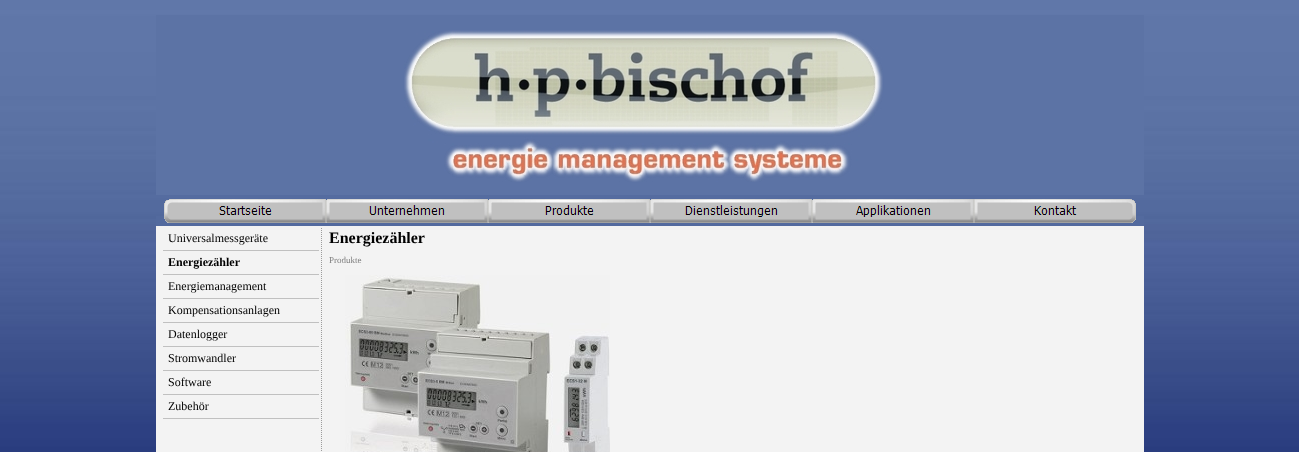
<svg xmlns="http://www.w3.org/2000/svg" width="1299" height="452" viewBox="0 0 1299 452">
  <rect width="100%" height="100%" fill="#ffffff"/>
  <image x="0" y="0" width="1299" height="452" href="img1.png"/>
  <rect x="156" y="15" width="988" height="180" fill="#5c73a5"/>
  <image x="404" y="30" width="479" height="152" href="img2.png"/>
  <rect x="156" y="226" width="988" height="226" fill="#f3f3f3"/>
  <rect x="156" y="216" width="988" height="10" fill="#536a9e"/>
  <image x="164" y="199" width="162" height="24" href="img3.png"/>
  <image x="326" y="199" width="162" height="24" href="img4.png"/>
  <image x="488" y="199" width="162" height="24" href="img5.png"/>
  <image x="650" y="199" width="162" height="24" href="img6.png"/>
  <image x="812" y="199" width="162" height="24" href="img7.png"/>
  <image x="974" y="199" width="162" height="24" href="img8.png"/>
  <rect x="163" y="250" width="156" height="1" fill="#c0c0c0"/>
  <text x="168" y="242" font-family="Liberation Serif" font-size="12" fill="#000000">Universalmessgeräte</text>
  <rect x="163" y="274" width="156" height="1" fill="#c0c0c0"/>
  <text x="168" y="266" font-family="Liberation Serif" font-size="12" font-weight="bold" fill="#000000">Energiezähler</text>
  <rect x="163" y="298" width="156" height="1" fill="#c0c0c0"/>
  <text x="168" y="290" font-family="Liberation Serif" font-size="12" fill="#000000">Energiemanagement</text>
  <rect x="163" y="322" width="156" height="1" fill="#c0c0c0"/>
  <text x="168" y="314" font-family="Liberation Serif" font-size="12" fill="#000000">Kompensationsanlagen</text>
  <rect x="163" y="346" width="156" height="1" fill="#c0c0c0"/>
  <text x="168" y="338" font-family="Liberation Serif" font-size="12" fill="#000000">Datenlogger</text>
  <rect x="163" y="370" width="156" height="1" fill="#c0c0c0"/>
  <text x="168" y="362" font-family="Liberation Serif" font-size="12" fill="#000000">Stromwandler</text>
  <rect x="163" y="394" width="156" height="1" fill="#c0c0c0"/>
  <text x="168" y="386" font-family="Liberation Serif" font-size="12" fill="#000000">Software</text>
  <rect x="163" y="418" width="156" height="1" fill="#c0c0c0"/>
  <text x="168" y="410" font-family="Liberation Serif" font-size="12" fill="#000000">Zubehör</text>
  <image x="321" y="228" width="1" height="223" href="img9.png"/>
  <text x="329" y="243" font-family="Liberation Serif" font-size="16" font-weight="bold" fill="#000000">Energiezähler</text>
  <text x="329" y="263" font-family="Liberation Serif" font-size="9" fill="#808080">Produkte</text>
  <image x="345" y="275" width="265" height="177" href="img10.png"/>
</svg>
